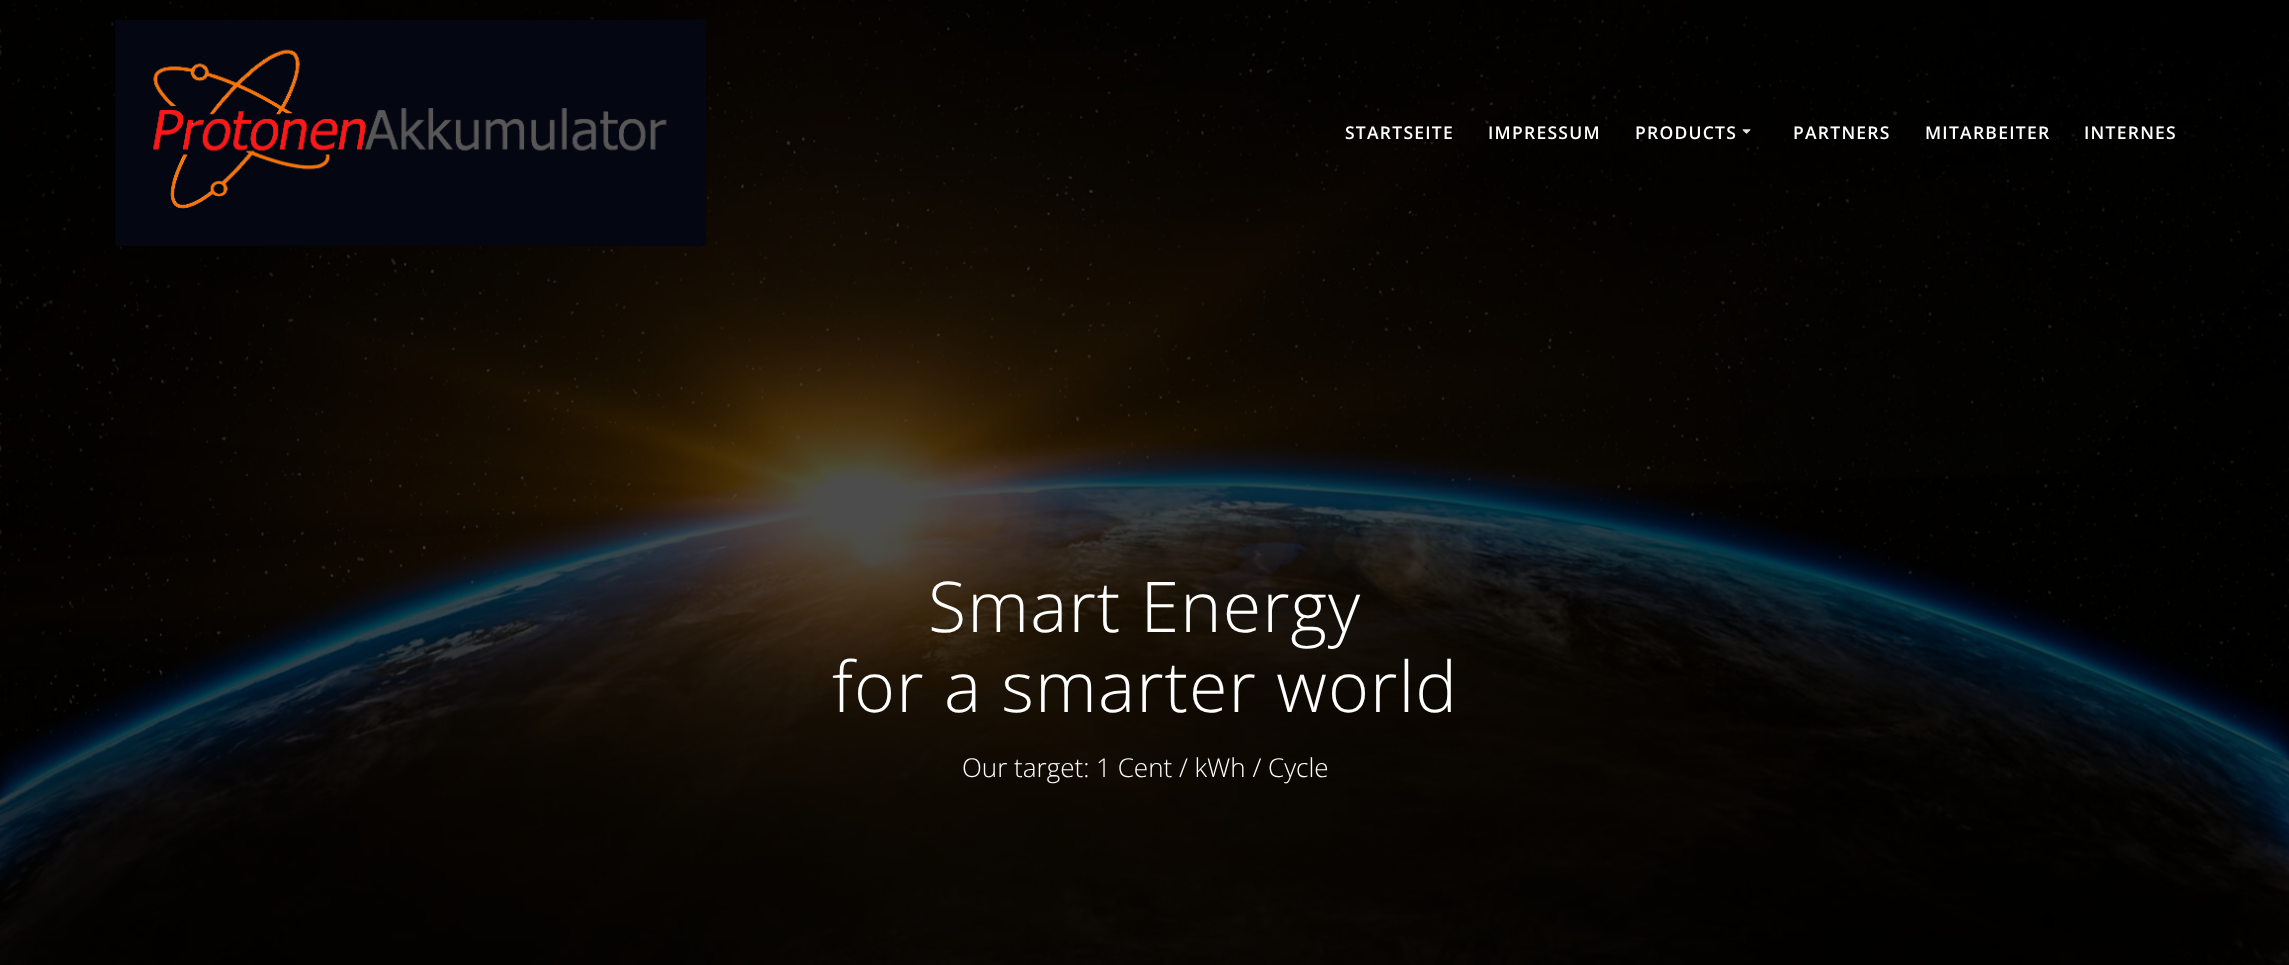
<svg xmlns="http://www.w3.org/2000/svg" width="2289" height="965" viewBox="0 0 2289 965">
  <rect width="100%" height="100%" fill="#ffffff"/>
  <image x="0" y="0" width="2289" height="965" href="img3.png"/>
  <image x="115" y="20" width="592" height="226" href="img1.png"/>
  <text x="1345" y="139" font-family="Open Sans" font-size="17.5" font-weight="600" letter-spacing="1.25" fill="#ffffff">STARTSEITE</text>
  <text x="1488" y="139" font-family="Open Sans" font-size="17.5" font-weight="600" letter-spacing="1.25" fill="#ffffff">IMPRESSUM</text>
  <text x="1635" y="139" font-family="Open Sans" font-size="17.5" font-weight="600" letter-spacing="1.25" fill="#ffffff">PRODUCTS</text>
  <image x="1742" y="129" width="9" height="5" href="img2.png"/>
  <text x="1793" y="139" font-family="Open Sans" font-size="17.5" font-weight="600" letter-spacing="1.25" fill="#ffffff">PARTNERS</text>
  <text x="1925" y="139" font-family="Open Sans" font-size="17.5" font-weight="600" letter-spacing="1.25" fill="#ffffff">MITARBEITER</text>
  <text x="2084" y="139" font-family="Open Sans" font-size="17.5" font-weight="600" letter-spacing="1.25" fill="#ffffff">INTERNES</text>
  <text x="928" y="632" font-family="Open Sans" font-size="70" font-weight="300" letter-spacing="1.1" fill="#ffffff">Smart Energy</text>
  <text x="832" y="712" font-family="Open Sans" font-size="70" font-weight="300" letter-spacing="1.1" fill="#ffffff">for a smarter world</text>
  <text x="962" y="777" font-family="Open Sans" font-size="26" font-weight="300" fill="#ffffff">Our target: 1 Cent / kWh / Cycle</text>
</svg>
